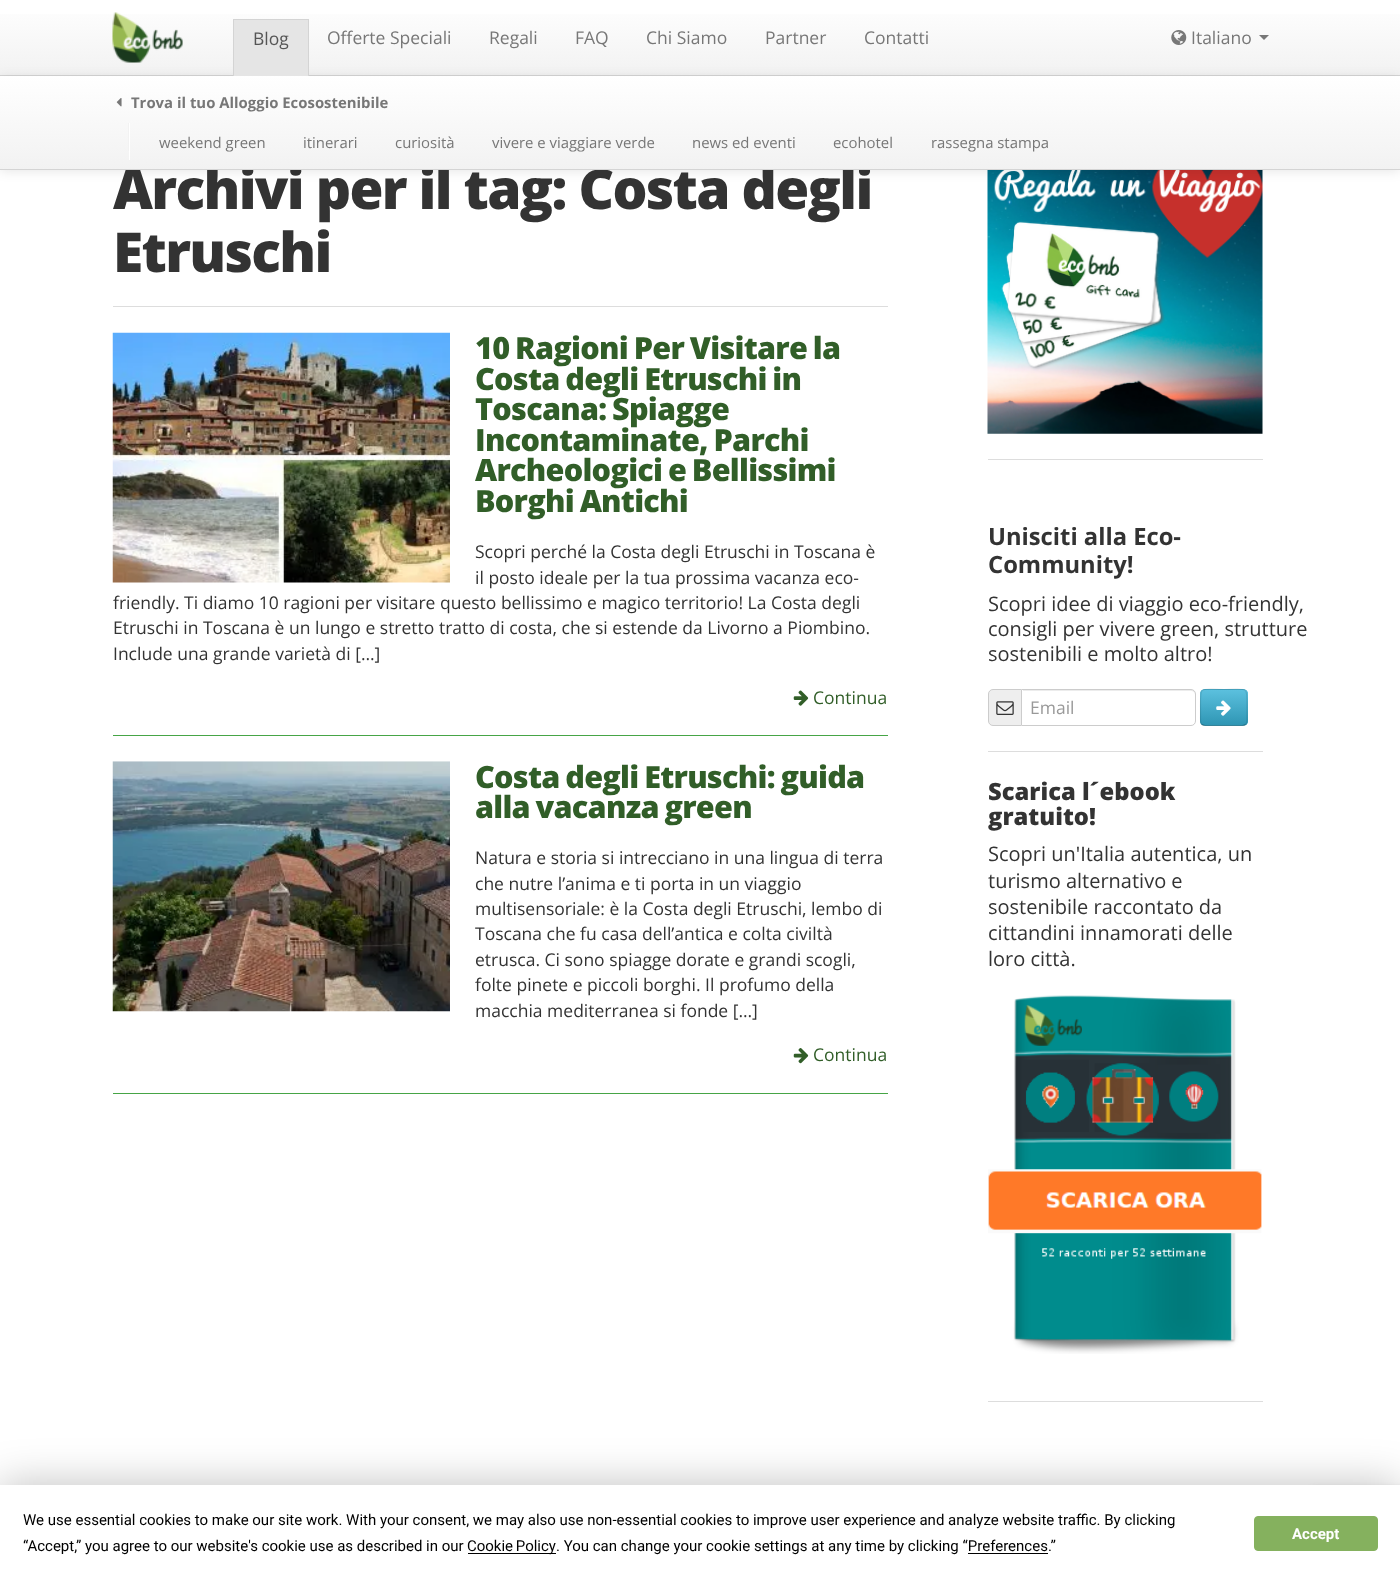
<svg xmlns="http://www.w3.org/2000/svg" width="1400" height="1582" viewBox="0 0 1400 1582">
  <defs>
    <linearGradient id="g1" gradientUnits="userSpaceOnUse" x1="700" y1="0" x2="700" y2="75"><stop offset="0" stop-color="#ffffff"/><stop offset="1" stop-color="#f2f2f2"/></linearGradient>
    <filter id="blur1" x="-50%" y="-200%" width="200%" height="500%"><feGaussianBlur stdDeviation="6"/></filter>
    <linearGradient id="g2" gradientUnits="userSpaceOnUse" x1="700" y1="76" x2="700" y2="169"><stop offset="0" stop-color="#ffffff"/><stop offset="1" stop-color="#f2f2f2"/></linearGradient>
    <clipPath id="clip1"><rect x="1200" y="689" width="48" height="37" rx="5"/></clipPath>
    <linearGradient id="g3" gradientUnits="userSpaceOnUse" x1="1224" y1="690" x2="1224" y2="725"><stop offset="0" stop-color="#5bc0de"/><stop offset="1" stop-color="#2f96b4"/></linearGradient>
    <filter id="blur2" x="-50%" y="-200%" width="200%" height="500%"><feGaussianBlur stdDeviation="3"/></filter>
    <filter id="blur3" x="-50%" y="-200%" width="200%" height="500%"><feGaussianBlur stdDeviation="22"/></filter>
  </defs>
  <rect width="100%" height="100%" fill="#ffffff"/>
  <rect x="0" y="14" width="1400" height="61" fill="url(#g1)"/>
  <rect x="0" y="75" width="1400" height="1" fill="#d4d4d4"/>
  <image x="987" y="170" width="276" height="264" href="img8.png"/>
  <rect x="0" y="78" width="1400" height="93" fill="#000000" fill-opacity="0.1" filter="url(#blur1)"/>
  <image x="112" y="12" width="71" height="51" href="img1.png"/>
  <rect x="234" y="20" width="74" height="56" fill="#e5e5e5"/>
  <rect x="233" y="19" width="76" height="1" fill="#d4d4d4"/>
  <rect x="308" y="19" width="1" height="57" fill="#d4d4d4"/>
  <rect x="233" y="19" width="1" height="57" fill="#d4d4d4"/>
  <text x="253" y="45" font-family="Open Sans" font-size="17.5" fill="#555555">Blog</text>
  <text x="327" y="44" font-family="Open Sans" font-size="17.5" fill="#777777">Offerte Speciali</text>
  <text x="489" y="44" font-family="Open Sans" font-size="17.5" fill="#777777">Regali</text>
  <text x="575" y="44" font-family="Open Sans" font-size="17.5" fill="#777777">FAQ</text>
  <text x="646" y="44" font-family="Open Sans" font-size="17.5" fill="#777777">Chi Siamo</text>
  <text x="765" y="44" font-family="Open Sans" font-size="17.5" fill="#777777">Partner</text>
  <text x="864" y="44" font-family="Open Sans" font-size="17.5" fill="#777777">Contatti</text>
  <image x="1171" y="30" width="16" height="15" href="img2.png"/>
  <text x="1191" y="44" font-family="Open Sans" font-size="17.5" fill="#777777">Italiano</text>
  <path d="M1259 35H1269L1264 40Z" fill="#777777"/>
  <text x="113" y="209" font-family="Open Sans" font-size="55" font-weight="800" letter-spacing="-1.65" fill="#333333">Archivi per il tag: Costa degli</text>
  <rect x="0" y="76" width="1400" height="93" fill="url(#g2)"/>
  <rect x="0" y="169" width="1400" height="1" fill="#d4d4d4"/>
  <image x="116" y="98" width="6" height="9" href="img3.png"/>
  <text x="131" y="108" font-family="Open Sans" font-size="14.9" font-weight="bold" fill="#777777">Trova il tuo Alloggio Ecosostenibile</text>
  <rect x="129" y="123" width="1" height="37" fill="#ffffff"/>
  <rect x="128" y="123" width="1" height="28" fill="#f2f2f2"/>
  <text x="159" y="148" font-family="Open Sans" font-size="14.9" fill="#777777">weekend green</text>
  <text x="303" y="148" font-family="Open Sans" font-size="14.9" fill="#777777">itinerari</text>
  <text x="395" y="148" font-family="Open Sans" font-size="14.9" fill="#777777">curiosità</text>
  <text x="492" y="148" font-family="Open Sans" font-size="14.9" fill="#777777">vivere e viaggiare verde</text>
  <text x="692" y="148" font-family="Open Sans" font-size="14.9" fill="#777777">news ed eventi</text>
  <text x="833" y="148" font-family="Open Sans" font-size="14.9" fill="#777777">ecohotel</text>
  <text x="931" y="148" font-family="Open Sans" font-size="14.9" fill="#777777">rassegna stampa</text>
  <rect x="113" y="306" width="775" height="1" fill="#dddddd"/>
  <text x="113" y="272" font-family="Open Sans" font-size="55" font-weight="800" letter-spacing="-1.65" fill="#333333">Etruschi</text>
  <rect x="113" y="735" width="775" height="1" fill="#46a546"/>
  <image x="112" y="332" width="338" height="251" href="img4.png"/>
  <text x="475" y="359" word-spacing="-1.5" font-family="Open Sans" font-size="30.6" font-weight="800" letter-spacing="-0.75" fill="#315e28">10 Ragioni Per Visitare la</text>
  <text x="475" y="390" word-spacing="-1.5" font-family="Open Sans" font-size="30.6" font-weight="800" letter-spacing="-0.75" fill="#315e28">Costa degli Etruschi in</text>
  <text x="475" y="420" word-spacing="-1.5" font-family="Open Sans" font-size="30.6" font-weight="800" letter-spacing="-0.75" fill="#315e28">Toscana: Spiagge</text>
  <text x="475" y="451" word-spacing="-1.5" font-family="Open Sans" font-size="30.6" font-weight="800" letter-spacing="-0.75" fill="#315e28">Incontaminate, Parchi</text>
  <text x="475" y="481" word-spacing="-1.5" font-family="Open Sans" font-size="30.6" font-weight="800" letter-spacing="-0.75" fill="#315e28">Archeologici e Bellissimi</text>
  <text x="475" y="512" word-spacing="-1.5" font-family="Open Sans" font-size="30.6" font-weight="800" letter-spacing="-0.75" fill="#315e28">Borghi Antichi</text>
  <text x="475" y="558" font-family="Open Sans" font-size="17.5" fill="#333333">Scopri perché la Costa degli Etruschi in Toscana è</text>
  <text x="475" y="584" font-family="Open Sans" font-size="17.5" fill="#333333">il posto ideale per la tua prossima vacanza eco-</text>
  <text x="113" y="609" font-family="Open Sans" font-size="17.5" fill="#333333">friendly. Ti diamo 10 ragioni per visitare questo bellissimo e magico territorio! La Costa degli</text>
  <text x="113" y="634" font-family="Open Sans" font-size="17.5" fill="#333333">Etruschi in Toscana è un lungo e stretto tratto di costa, che si estende da Livorno a Piombino.</text>
  <text x="113" y="660" font-family="Open Sans" font-size="17.5" fill="#333333">Include una grande varietà di […]</text>
  <image x="793" y="690" width="16" height="16" href="img5.png"/>
  <text x="813" y="704" font-family="Open Sans" font-size="17.5" fill="#315e28">Continua</text>
  <rect x="113" y="1093" width="775" height="1" fill="#46a546"/>
  <image x="112" y="761" width="338" height="251" href="img6.png"/>
  <text x="475" y="788" word-spacing="-1.5" font-family="Open Sans" font-size="30.6" font-weight="800" letter-spacing="-0.75" fill="#315e28">Costa degli Etruschi: guida</text>
  <text x="475" y="818" word-spacing="-1.5" font-family="Open Sans" font-size="30.6" font-weight="800" letter-spacing="-0.75" fill="#315e28">alla vacanza green</text>
  <text x="475" y="864" font-family="Open Sans" font-size="17.5" fill="#333333">Natura e storia si intrecciano in una lingua di terra</text>
  <text x="475" y="890" font-family="Open Sans" font-size="17.5" fill="#333333">che nutre l’anima e ti porta in un viaggio</text>
  <text x="475" y="915" font-family="Open Sans" font-size="17.5" fill="#333333">multisensoriale: è la Costa degli Etruschi, lembo di</text>
  <text x="475" y="940" font-family="Open Sans" font-size="17.5" fill="#333333">Toscana che fu casa dell’antica e colta civiltà</text>
  <text x="475" y="966" font-family="Open Sans" font-size="17.5" fill="#333333">etrusca. Ci sono spiagge dorate e grandi scogli,</text>
  <text x="475" y="991" font-family="Open Sans" font-size="17.5" fill="#333333">folte pinete e piccoli borghi. Il profumo della</text>
  <text x="475" y="1017" font-family="Open Sans" font-size="17.5" fill="#333333">macchia mediterranea si fonde […]</text>
  <image x="793" y="1048" width="16" height="16" href="img7.png"/>
  <text x="813" y="1061" font-family="Open Sans" font-size="17.5" fill="#315e28">Continua</text>
  <rect x="988" y="459" width="275" height="1" fill="#dddddd"/>
  <text x="988" y="545" font-family="Open Sans" font-size="23.75" font-weight="bold" fill="#333333">Unisciti alla Eco-</text>
  <text x="988" y="573" font-family="Open Sans" font-size="23.75" font-weight="bold" fill="#333333">Community!</text>
  <text x="988" y="611" font-family="Open Sans" font-size="20" fill="#333333">Scopri idee di viaggio eco-friendly,</text>
  <text x="988" y="636" font-family="Open Sans" font-size="20" fill="#333333">consigli per vivere green, strutture</text>
  <text x="988" y="661" font-family="Open Sans" font-size="20" fill="#333333">sostenibili e molto altro!</text>
  <path d="M993 689.5H1022.5V725.5H993C990.5 725.5 988.5 723.5 988.5 721V694C988.5 691.5 990.5 689.5 993 689.5Z" fill="#eeeeee" stroke="#cccccc"/>
  <image x="996" y="701" width="18" height="14" href="img9.png"/>
  <path d="M1021 689H1191C1194 689 1196 691 1196 694V721C1196 724 1194 726 1191 726H1021Z" fill="#ffffff"/>
  <path d="M1023 690V691H1191C1193 691 1195 693 1195 695C1195 692 1194 690 1191 690Z" fill="#ececec"/>
  <path d="M1021.5 689.5H1191C1193.5 689.5 1195.5 691.5 1195.5 694V721C1195.5 723.5 1193.5 725.5 1191 725.5H1021.5Z" fill="none" stroke="#cccccc"/>
  <text x="1030" y="714" font-family="Open Sans" font-size="17.5" fill="#999999">Email</text>
  <rect x="1200" y="689" width="48" height="37" rx="5" fill="#49afcd"/>
  <g clip-path="url(#clip1)">
    <rect x="1200" y="690" width="48" height="35" fill="url(#g3)"/>
  </g>
  <path d="M1245.5 724.5C1245 725 1243.5 725.5 1242.5 725.5H1205C1204 725.5 1202.5 725 1202 724.5" fill="none" stroke="#000000" stroke-opacity="0.25" stroke-width="1.2"/>
  <path d="M1202 724.5C1200 722.5 1200.5 719 1200.5 716.5V707.5C1200.5 684.5 1199 689.5 1224 689.5C1248.5 689.5 1247 684.5 1247 707.5V716.5C1247 719 1247.5 722.5 1245.5 724.5" fill="none" stroke="#000000" stroke-opacity="0.1" stroke-width="1.2"/>
  <image x="1216" y="700" width="15" height="16" href="img10.png"/>
  <rect x="1313" y="1490" width="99" height="75" rx="2.5" fill="#808080" filter="url(#blur2)"/>
  <rect x="988" y="751" width="275" height="1" fill="#dddddd"/>
  <text x="988" y="800" font-family="Open Sans" font-size="23.75" font-weight="800" fill="#333333">Scarica l´ebook</text>
  <text x="988" y="825" font-family="Open Sans" font-size="23.75" font-weight="800" fill="#333333">gratuito!</text>
  <text x="988" y="861" font-family="Open Sans" font-size="20" fill="#333333">Scopri un'Italia autentica, un</text>
  <text x="988" y="888" font-family="Open Sans" font-size="20" fill="#333333">turismo alternativo e</text>
  <text x="988" y="914" font-family="Open Sans" font-size="20" fill="#333333">sostenibile raccontato da</text>
  <text x="988" y="940" font-family="Open Sans" font-size="20" fill="#333333">cittandini innamorati delle</text>
  <text x="988" y="966" font-family="Open Sans" font-size="20" fill="#333333">loro città.</text>
  <image x="988" y="995" width="274" height="359" href="img11.png"/>
  <rect x="988" y="1401" width="275" height="1" fill="#dddddd"/>
  <rect x="0" y="1485" width="1400" height="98" fill="#000000" fill-opacity="0.25" filter="url(#blur3)"/>
  <rect x="0" y="1485" width="1400" height="97" fill="#ffffff"/>
  <text x="23" y="1525" font-family="Roboto" font-size="15" fill="#000000">We use essential cookies to make our site work. With your consent, we may also use non-essential cookies to improve user experience and analyze website traffic. By clicking</text>
  <text x="23" y="1551" font-family="Roboto" font-size="15" fill="#000000">“Accept,” you agree to our website's cookie use as described in our</text>
  <rect x="468" y="1553" width="88" height="1" fill="#000000"/>
  <text x="467" y="1551" word-spacing="-1" font-family="Roboto" font-size="15" fill="#000000">Cookie Policy</text>
  <text x="556" y="1551" font-family="Roboto" font-size="15" fill="#000000">. You can change your cookie settings at any time by clicking “Preferences.”</text>
  <rect x="968" y="1553" width="80" height="1" fill="#000000"/>
  <rect x="1254.5" y="1516.5" width="123" height="34" rx="3.5" fill="#85b15e" stroke="#85b15e"/>
  <text x="1292" y="1539" font-family="Roboto" font-size="15" font-weight="bold" fill="#ffffff">Accept</text>
</svg>
